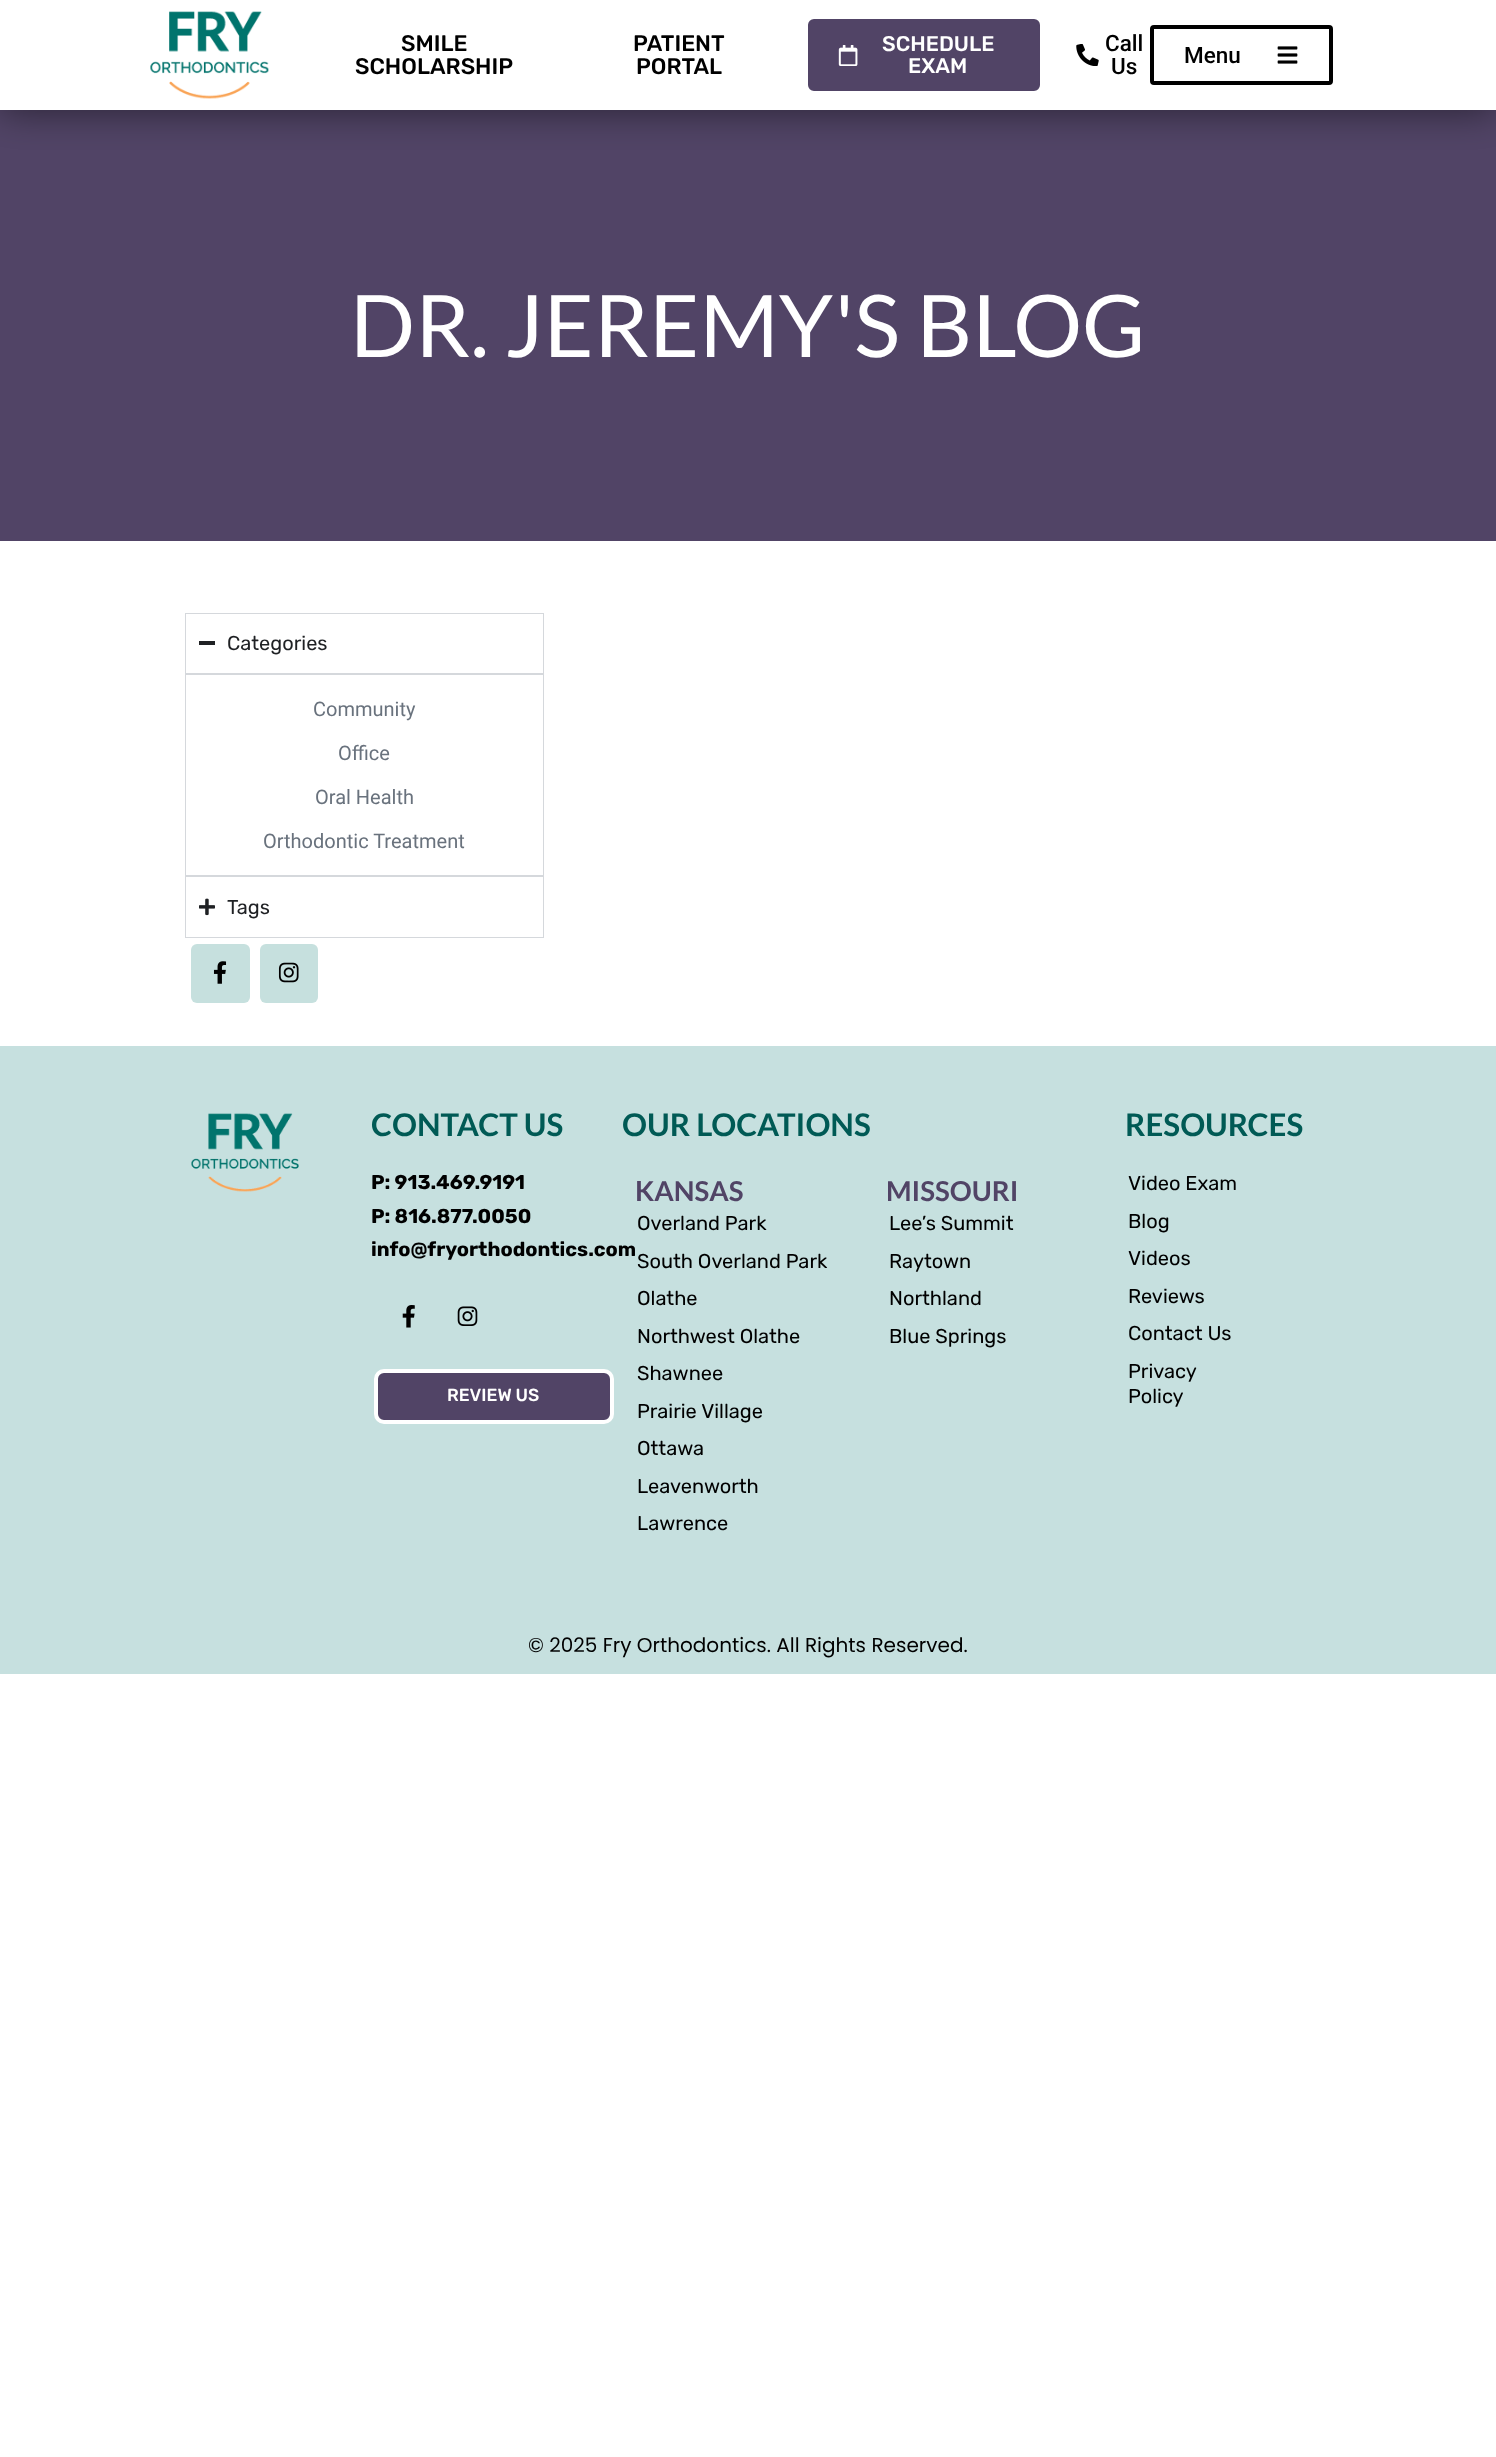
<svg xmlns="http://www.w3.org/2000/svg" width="1496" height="2457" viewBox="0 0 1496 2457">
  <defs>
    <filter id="blur1" x="-50%" y="-200%" width="200%" height="500%"><feGaussianBlur stdDeviation="19"/></filter>
  </defs>
  <rect width="100%" height="100%" fill="#ffffff"/>
  <rect x="0" y="110" width="1496" height="431" fill="#514466"/>
  <rect x="0" y="1" width="1496" height="110" fill="#000000" fill-opacity="0.5" filter="url(#blur1)"/>
  <rect x="0" y="0" width="1496" height="110" fill="#ffffff"/>
  <image x="150" y="11" width="119" height="88" href="img1.png"/>
  <text x="401" y="51" font-family="Rubik" font-size="22.5" font-weight="500" fill="#000000">SMILE</text>
  <text x="355" y="74" font-family="Rubik" font-size="22.5" font-weight="500" fill="#000000">SCHOLARSHIP</text>
  <text x="633" y="51" font-family="Rubik" font-size="22.5" font-weight="500" fill="#000000">PATIENT</text>
  <text x="636" y="74" font-family="Rubik" font-size="22.5" font-weight="500" fill="#000000">PORTAL</text>
  <rect x="806" y="17" width="236" height="76" rx="8" fill="#514466" stroke="#ffffff" stroke-width="4"/>
  <image x="838" y="45" width="20" height="21" href="img2.png"/>
  <text x="882" y="51" font-family="Rubik" font-size="21.25" font-weight="500" fill="#ffffff">SCHEDULE</text>
  <text x="908" y="73" font-family="Rubik" font-size="21.25" font-weight="500" fill="#ffffff">EXAM</text>
  <image x="1076" y="44" width="23" height="22" href="img3.png"/>
  <text x="1105" y="51" font-family="Roboto" font-size="22.5" font-weight="500" fill="#000000">Call</text>
  <text x="1111" y="74" font-family="Roboto" font-size="22.5" font-weight="500" fill="#000000">Us</text>
  <rect x="1152" y="27" width="179" height="56" rx="2" fill="none" stroke="#000000" stroke-width="4"/>
  <text x="1184" y="63" font-family="Roboto" font-size="22.5" font-weight="500" fill="#000000">Menu</text>
  <image x="1277" y="46" width="21" height="18" href="img4.png"/>
  <text x="350" y="357" font-family="Lato" font-size="86.25" fill="#ffffff">DR. JEREMY'S BLOG</text>
  <rect x="185.5" y="613.5" width="358" height="60" fill="none" stroke="#d5d8dc"/>
  <rect x="199" y="641" width="16" height="4" fill="#1f2124"/>
  <text x="227" y="650" font-family="Rubik" font-size="20" fill="#1f2124">Categories</text>
  <rect x="185.5" y="674.5" width="358" height="201" fill="none" stroke="#d5d8dc"/>
  <text x="313" y="716" font-family="Roboto" font-size="20" fill="#69727d">Community</text>
  <text x="338" y="760" font-family="Roboto" font-size="20" fill="#69727d">Office</text>
  <text x="315" y="804" font-family="Roboto" font-size="20" fill="#69727d">Oral Health</text>
  <text x="263" y="848" font-family="Roboto" font-size="20" fill="#69727d">Orthodontic Treatment</text>
  <rect x="185.5" y="876.5" width="358" height="61" fill="none" stroke="#d5d8dc"/>
  <image x="199" y="898" width="16" height="18" href="img5.png"/>
  <text x="227" y="914" font-family="Rubik" font-size="20" fill="#1f2124">Tags</text>
  <rect x="191" y="944" width="59" height="59" rx="6" fill="#c6e0de"/>
  <image x="213" y="961" width="14" height="23" href="img6.png"/>
  <rect x="260" y="944" width="58" height="59" rx="6" fill="#c6e0de"/>
  <image x="278" y="962" width="21" height="21" href="img7.png"/>
  <rect x="0" y="1046" width="1496" height="628" fill="#c6e0df"/>
  <image x="191" y="1113" width="108" height="79" href="img8.png"/>
  <text x="371" y="1136" font-family="Lato" font-size="31.25" font-weight="bold" fill="#005a55">CONTACT US</text>
  <text x="371" y="1189" font-family="Rubik" font-size="20" font-weight="bold" fill="#000000">P: 913.469.9191</text>
  <text x="371" y="1223" font-family="Rubik" font-size="20" font-weight="bold" fill="#000000">P: 816.877.0050</text>
  <text x="371" y="1256" font-family="Rubik" font-size="20" font-weight="bold" fill="#000000">info@fryorthodontics.com</text>
  <image x="402" y="1305" width="13" height="23" href="img9.png"/>
  <image x="457" y="1306" width="21" height="20" href="img10.png"/>
  <rect x="376" y="1371" width="236" height="51" rx="8" fill="#514466" stroke="#ffffff" stroke-width="4"/>
  <text x="447" y="1401" font-family="Rubik" font-size="17.5" font-weight="500" fill="#ffffff">REVIEW US</text>
  <text x="622" y="1136" font-family="Lato" font-size="31.25" font-weight="bold" fill="#005a55">OUR LOCATIONS</text>
  <text x="635" y="1201" font-family="Lato" font-size="27.5" font-weight="bold" fill="#514466">KANSAS</text>
  <text x="637" y="1230" font-family="Rubik" font-size="20" fill="#000000">Overland Park</text>
  <text x="637" y="1268" font-family="Rubik" font-size="20" fill="#000000">South Overland Park</text>
  <text x="637" y="1305" font-family="Rubik" font-size="20" fill="#000000">Olathe</text>
  <text x="637" y="1343" font-family="Rubik" font-size="20" fill="#000000">Northwest Olathe</text>
  <text x="637" y="1380" font-family="Rubik" font-size="20" fill="#000000">Shawnee</text>
  <text x="637" y="1418" font-family="Rubik" font-size="20" fill="#000000">Prairie Village</text>
  <text x="637" y="1455" font-family="Rubik" font-size="20" fill="#000000">Ottawa</text>
  <text x="637" y="1493" font-family="Rubik" font-size="20" fill="#000000">Leavenworth</text>
  <text x="637" y="1530" font-family="Rubik" font-size="20" fill="#000000">Lawrence</text>
  <text x="886" y="1201" font-family="Lato" font-size="27.5" font-weight="bold" fill="#514466">MISSOURI</text>
  <text x="889" y="1230" font-family="Rubik" font-size="20" fill="#000000">Lee’s Summit</text>
  <text x="889" y="1268" font-family="Rubik" font-size="20" fill="#000000">Raytown</text>
  <text x="889" y="1305" font-family="Rubik" font-size="20" fill="#000000">Northland</text>
  <text x="889" y="1343" font-family="Rubik" font-size="20" fill="#000000">Blue Springs</text>
  <text x="1125" y="1136" font-family="Lato" font-size="31.25" font-weight="bold" fill="#005a55">RESOURCES</text>
  <text x="1128" y="1190" font-family="Rubik" font-size="20" fill="#000000">Video Exam</text>
  <text x="1128" y="1228" font-family="Rubik" font-size="20" fill="#000000">Blog</text>
  <text x="1128" y="1265" font-family="Rubik" font-size="20" fill="#000000">Videos</text>
  <text x="1128" y="1303" font-family="Rubik" font-size="20" fill="#000000">Reviews</text>
  <text x="1128" y="1340" font-family="Rubik" font-size="20" fill="#000000">Contact Us</text>
  <text x="1128" y="1378" font-family="Rubik" font-size="20" fill="#000000">Privacy</text>
  <text x="1128" y="1403" font-family="Rubik" font-size="20" fill="#000000">Policy</text>
  <text x="528" y="1652" font-family="Poppins" font-size="20" fill="#000000">© 2025 Fry Orthodontics. All Rights Reserved.</text>
</svg>
